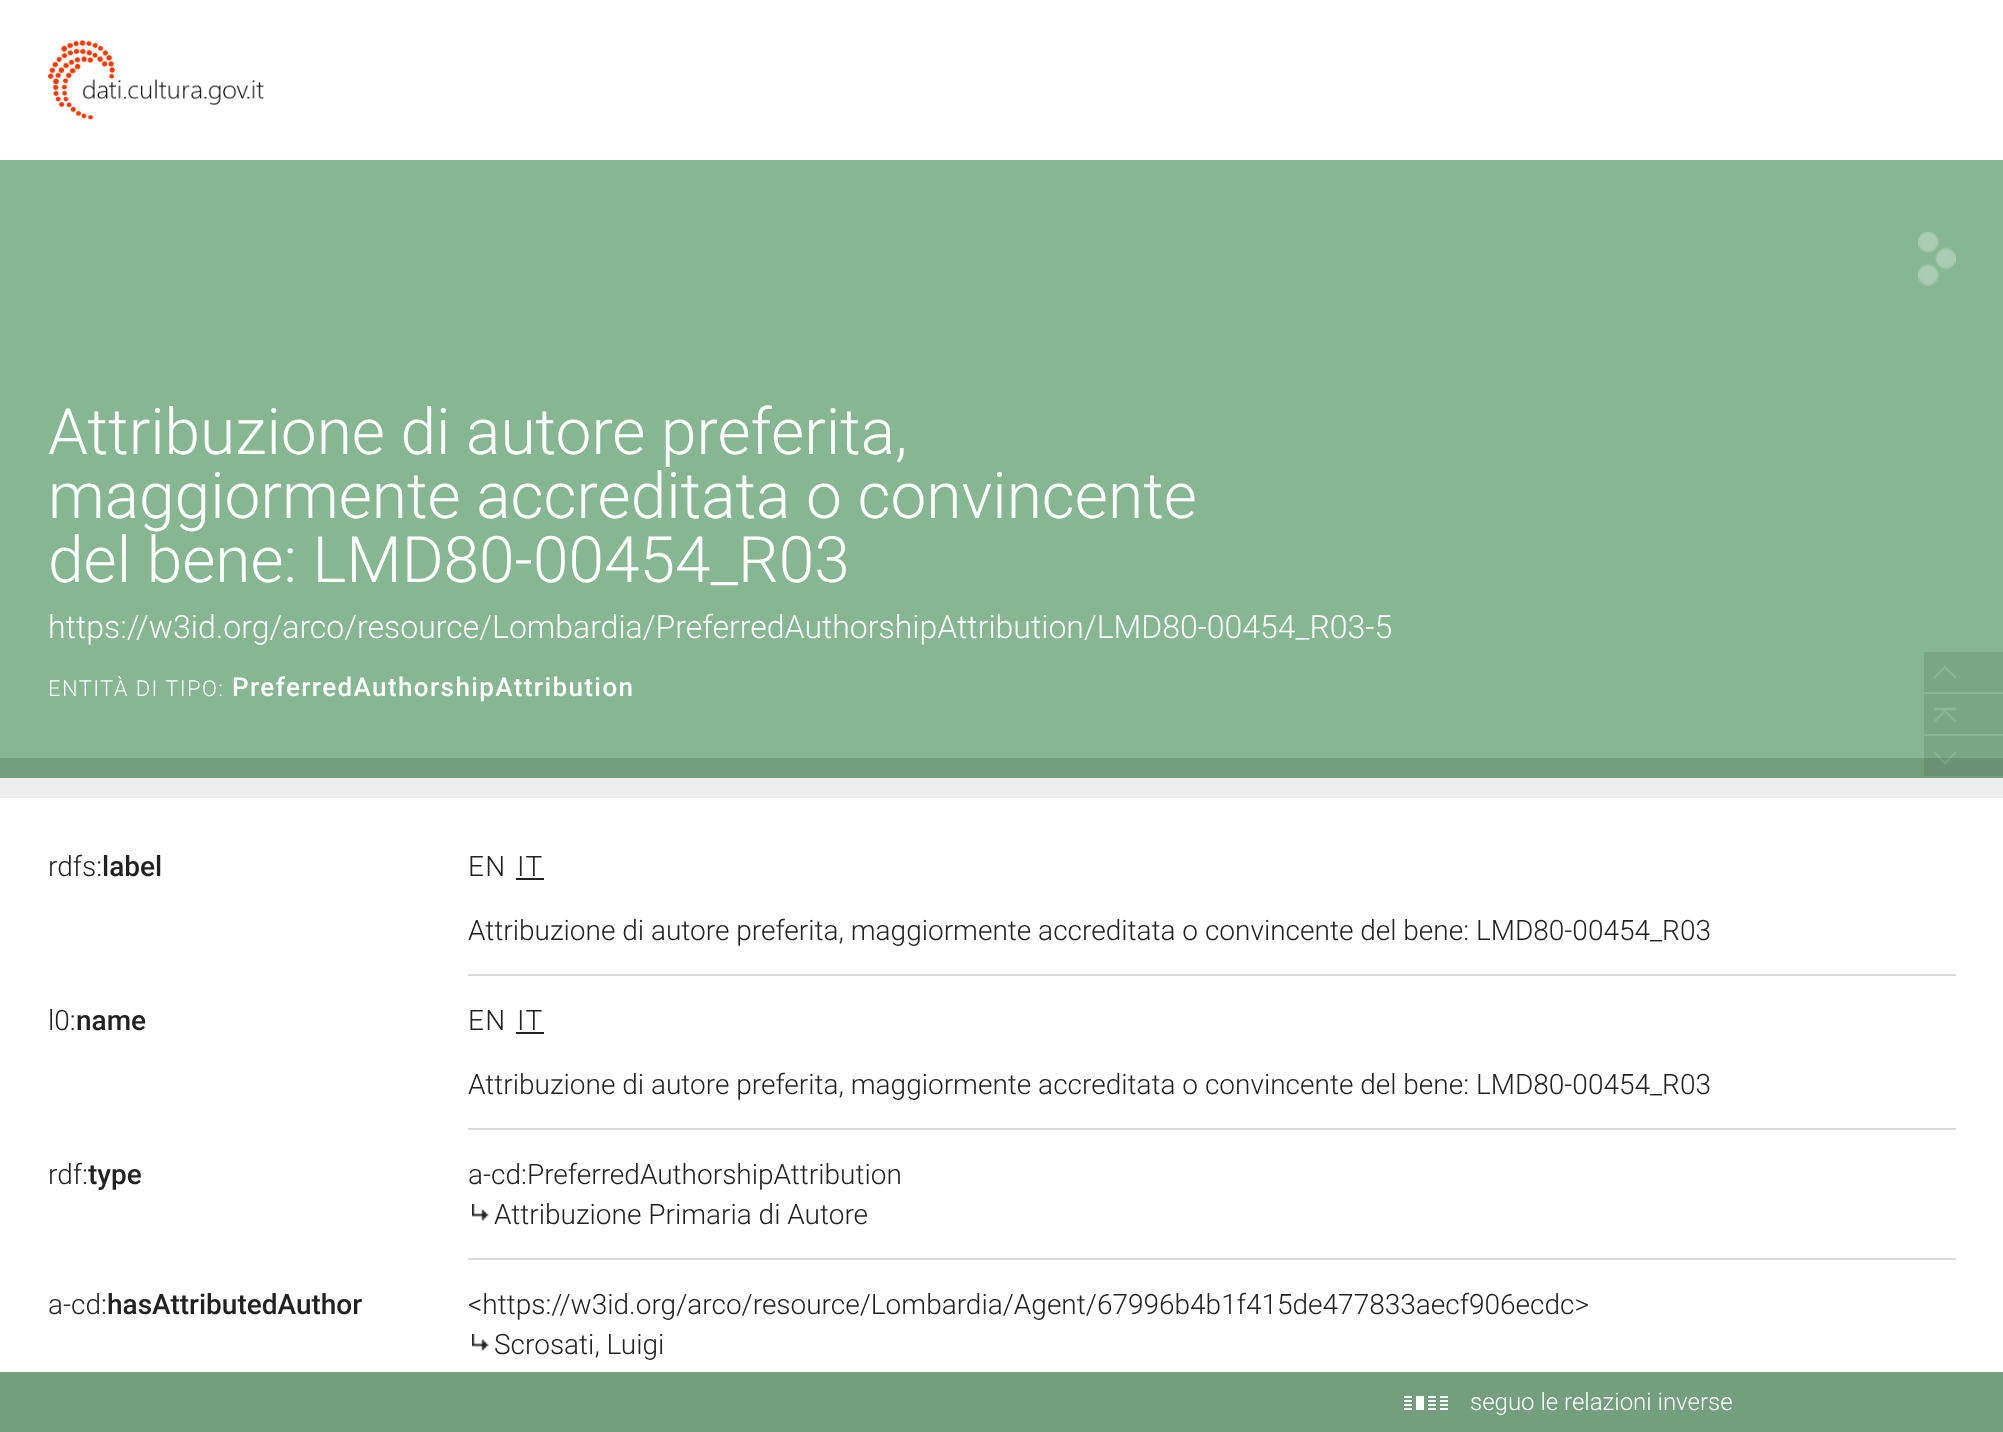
<svg xmlns="http://www.w3.org/2000/svg" width="2003" height="1432" viewBox="0 0 2003 1432">
  <rect width="100%" height="100%" fill="#ffffff"/>
  <image x="48" y="40" width="216" height="80" href="img1.png"/>
  <rect x="0" y="160" width="2003" height="598" fill="#86b692"/>
  <text x="48" y="454" font-family="Roboto" font-size="64" font-weight="300" fill="#ffffff">Attribuzione di autore preferita,</text>
  <text x="48" y="518" font-family="Roboto" font-size="64" font-weight="300" fill="#ffffff">maggiormente accreditata o convincente</text>
  <text x="48" y="582" font-family="Roboto" font-size="64" font-weight="300" fill="#ffffff">del bene: LMD80-00454_R03</text>
  <image x="1918" y="232" width="38" height="54" href="img2.png"/>
  <text x="48" y="638" font-family="Roboto" font-size="32" font-weight="300" fill="#ffffff">https://w3id.org/arco/resource/Lombardia/PreferredAuthorshipAttribution/LMD80-00454_R03-5</text>
  <text x="48" y="696" font-family="Roboto" font-size="22" font-weight="300" letter-spacing="1.4" fill="#ffffff">ENTITÀ DI TIPO:</text>
  <text x="232" y="696" font-family="Roboto" font-size="26" font-weight="500" letter-spacing="1.4" fill="#ffffff">PreferredAuthorshipAttribution</text>
  <rect x="0" y="758" width="2003" height="20" fill="#749f7e"/>
  <rect x="0" y="778" width="2003" height="20" fill="#eeeeee"/>
  <text x="48" y="876" font-family="Roboto" font-size="28" font-weight="300" fill="#212121">rdfs:</text>
  <text x="102" y="876" font-family="Roboto" font-size="28" font-weight="500" fill="#212121">label</text>
  <rect x="468" y="974" width="1488" height="2" fill="#dbdbdb"/>
  <text x="468" y="876" font-family="Roboto" font-size="28" font-weight="300" letter-spacing="1.4" fill="#212121">EN</text>
  <text x="517" y="876" font-family="Roboto" font-size="28" font-weight="300" letter-spacing="1.4" fill="#212121">IT</text>
  <rect x="516" y="878" width="28" height="2" fill="#212121"/>
  <text x="468" y="940" font-family="Roboto" font-size="28" font-weight="300" fill="#212121">Attribuzione di autore preferita, maggiormente accreditata o convincente del bene: LMD80-00454_R03</text>
  <text x="48" y="1030" font-family="Roboto" font-size="28" font-weight="300" fill="#212121">l0:</text>
  <text x="76" y="1030" font-family="Roboto" font-size="28" font-weight="500" fill="#212121">name</text>
  <rect x="468" y="1128" width="1488" height="2" fill="#dbdbdb"/>
  <text x="468" y="1030" font-family="Roboto" font-size="28" font-weight="300" letter-spacing="1.4" fill="#212121">EN</text>
  <text x="517" y="1030" font-family="Roboto" font-size="28" font-weight="300" letter-spacing="1.4" fill="#212121">IT</text>
  <rect x="516" y="1032" width="28" height="2" fill="#212121"/>
  <text x="468" y="1094" font-family="Roboto" font-size="28" font-weight="300" fill="#212121">Attribuzione di autore preferita, maggiormente accreditata o convincente del bene: LMD80-00454_R03</text>
  <text x="48" y="1184" font-family="Roboto" font-size="28" font-weight="300" fill="#212121">rdf:</text>
  <text x="88" y="1184" font-family="Roboto" font-size="28" font-weight="500" fill="#212121">type</text>
  <rect x="468" y="1258" width="1488" height="2" fill="#dbdbdb"/>
  <text x="468" y="1184" font-family="Roboto" font-size="28" font-weight="300" fill="#212121">a-cd:PreferredAuthorshipAttribution</text>
  <image x="472" y="1204" width="17" height="17" href="img3.png"/>
  <text x="494" y="1224" font-family="Roboto" font-size="28" font-weight="300" fill="#212121">Attribuzione Primaria di Autore</text>
  <text x="48" y="1314" font-family="Roboto" font-size="28" font-weight="300" fill="#212121">a-cd:</text>
  <text x="107" y="1314" font-family="Roboto" font-size="28" font-weight="500" fill="#212121">hasAttributedAuthor</text>
  <text x="468" y="1314" font-family="Roboto" font-size="28" font-weight="300" fill="#212121">&lt;https://w3id.org/arco/resource/Lombardia/Agent/67996b4b1f415de477833aecf906ecdc&gt;</text>
  <image x="472" y="1334" width="17" height="17" href="img3.png"/>
  <text x="494" y="1354" font-family="Roboto" font-size="28" font-weight="300" fill="#212121">Scrosati, Luigi</text>
  <image x="1924" y="652" width="79" height="40" href="img4.png"/>
  <image x="1924" y="694" width="79" height="40" href="img5.png"/>
  <image x="1924" y="736" width="79" height="40" href="img6.png"/>
  <rect x="0" y="1372" width="2003" height="60" fill="#749f7e"/>
  <image x="1404" y="1396" width="44" height="14" href="img7.png"/>
  <text x="1470" y="1410" font-family="Roboto" font-size="24" font-weight="300" fill="#ffffff">seguo le relazioni inverse</text>
</svg>
